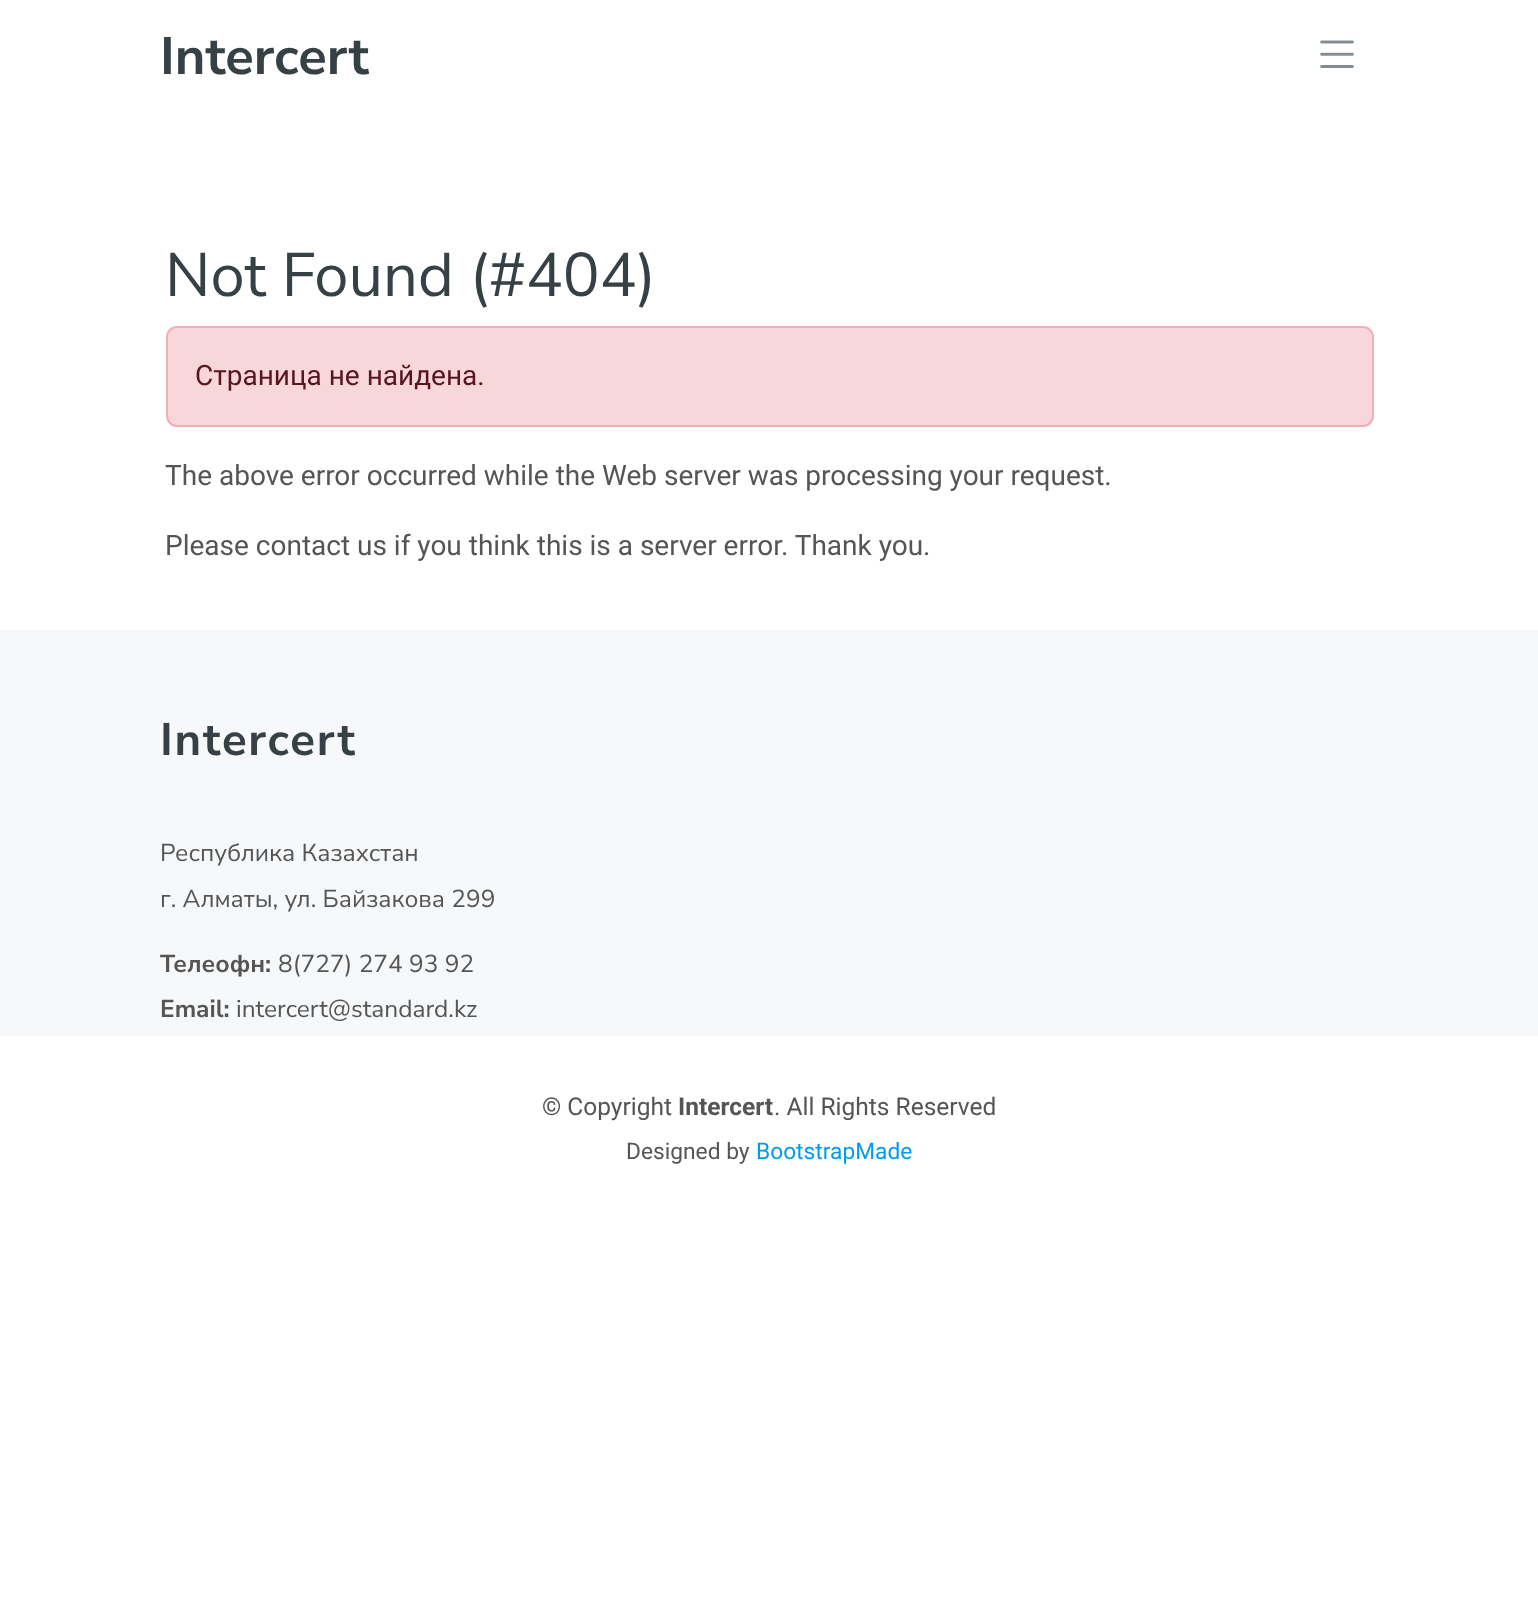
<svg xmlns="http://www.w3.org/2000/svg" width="1538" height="1598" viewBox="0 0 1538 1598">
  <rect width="100%" height="100%" fill="#ffffff"/>
  <text x="160" y="74" font-family="Nunito Sans" font-size="52.5" font-weight="bold" fill="#364146">Intercert</text>
  <image x="1320" y="40" width="34" height="28" href="img1.png"/>
  <text x="165" y="296" font-family="Nunito Sans" font-size="61.5" fill="#364146">Not Found (#404)</text>
  <rect x="167" y="327" width="1206" height="99" rx="10" fill="#f8d7da" stroke="#f1aeb5" stroke-width="2"/>
  <text x="195" y="385" font-family="Roboto" font-size="28" fill="#58151c">Страница не найдена.</text>
  <text x="165" y="485" font-family="Roboto" font-size="28" fill="#555555">The above error occurred while the Web server was processing your request.</text>
  <text x="165" y="555" font-family="Roboto" font-size="28" fill="#555555">Please contact us if you think this is a server error. Thank you.</text>
  <rect x="0" y="630" width="1538" height="406" fill="#f6f8fa"/>
  <text x="160" y="755" font-family="Nunito Sans" font-size="45.5" font-weight="bold" letter-spacing="1.75" fill="#364146">Intercert</text>
  <text x="160" y="861" font-family="Nunito Sans" font-size="24.5" fill="#555555">Республика Казахстан</text>
  <text x="160" y="907" font-family="Nunito Sans" font-size="24.5" fill="#555555">г. Алматы, ул. Байзакова 299</text>
  <text x="160" y="972" font-family="Nunito Sans" font-size="24.5" font-weight="bold" fill="#555555">Телеофн:</text>
  <text x="278" y="972" font-family="Nunito Sans" font-size="24.5" fill="#555555">8(727) 274 93 92</text>
  <text x="160" y="1017" font-family="Nunito Sans" font-size="24.5" font-weight="bold" fill="#555555">Email:</text>
  <text x="236" y="1017" font-family="Nunito Sans" font-size="24.5" fill="#555555">intercert@standard.kz</text>
  <text x="542" y="1115" font-family="Roboto" font-size="24.5" fill="#555555">© Copyright</text>
  <text x="678" y="1115" font-family="Roboto" font-size="24.5" font-weight="bold" fill="#555555">Intercert</text>
  <text x="774" y="1115" font-family="Roboto" font-size="24.5" fill="#555555">. All Rights Reserved</text>
  <text x="626" y="1159" font-family="Roboto" font-size="22.75" fill="#555555">Designed by</text>
  <text x="756" y="1159" font-family="Roboto" font-size="22.75" fill="#009cea">BootstrapMade</text>
</svg>
